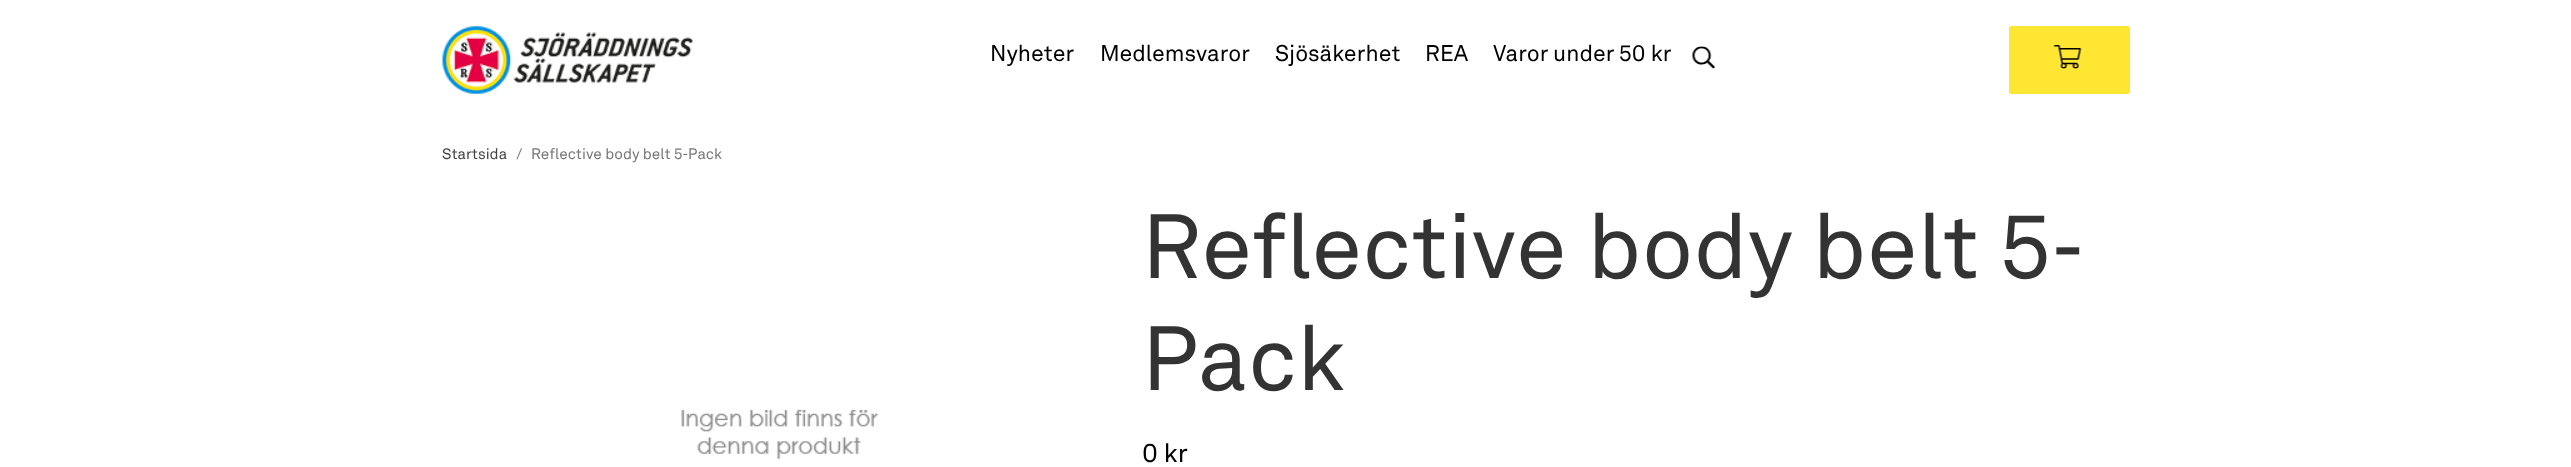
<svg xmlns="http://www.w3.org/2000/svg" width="2571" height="467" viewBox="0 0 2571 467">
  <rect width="100%" height="100%" fill="#ffffff"/>
  <image x="442" y="26" width="251" height="68" href="img1.png"/>
  <text x="990" y="61" font-family="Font" font-size="22.5" fill="#000000">Nyheter</text>
  <text x="1100" y="61" font-family="Font" font-size="22.5" fill="#000000">Medlemsvaror</text>
  <text x="1275" y="61" font-family="Font" font-size="22.5" fill="#000000">Sjösäkerhet</text>
  <text x="1425" y="61" font-family="Font" font-size="22.5" fill="#000000">REA</text>
  <text x="1493" y="61" font-family="Font" font-size="22.5" fill="#000000">Varor under 50 kr</text>
  <image x="1692" y="46" width="24" height="23" href="img2.png"/>
  <rect x="2009" y="26" width="121" height="68" rx="2.5" fill="#ffe632"/>
  <image x="2053" y="45" width="29" height="24" href="img3.png"/>
  <text x="442" y="159" font-family="Font" font-size="15" fill="#444444">Startsida</text>
  <text x="516" y="159" font-family="Font" font-size="15" fill="#777777">/</text>
  <text x="531" y="159" font-family="Font" font-size="15" fill="#777777">Reflective body belt 5-Pack</text>
  <image x="681" y="409" width="198" height="50" href="img4.png"/>
  <text x="1142" y="278" font-family="Font" font-size="90" fill="#333333">Reflective body belt 5-</text>
  <text x="1142" y="390" font-family="Font" font-size="90" fill="#333333">Pack</text>
  <text x="1142" y="462" font-family="Font" font-size="26" fill="#000000">0 kr</text>
</svg>
